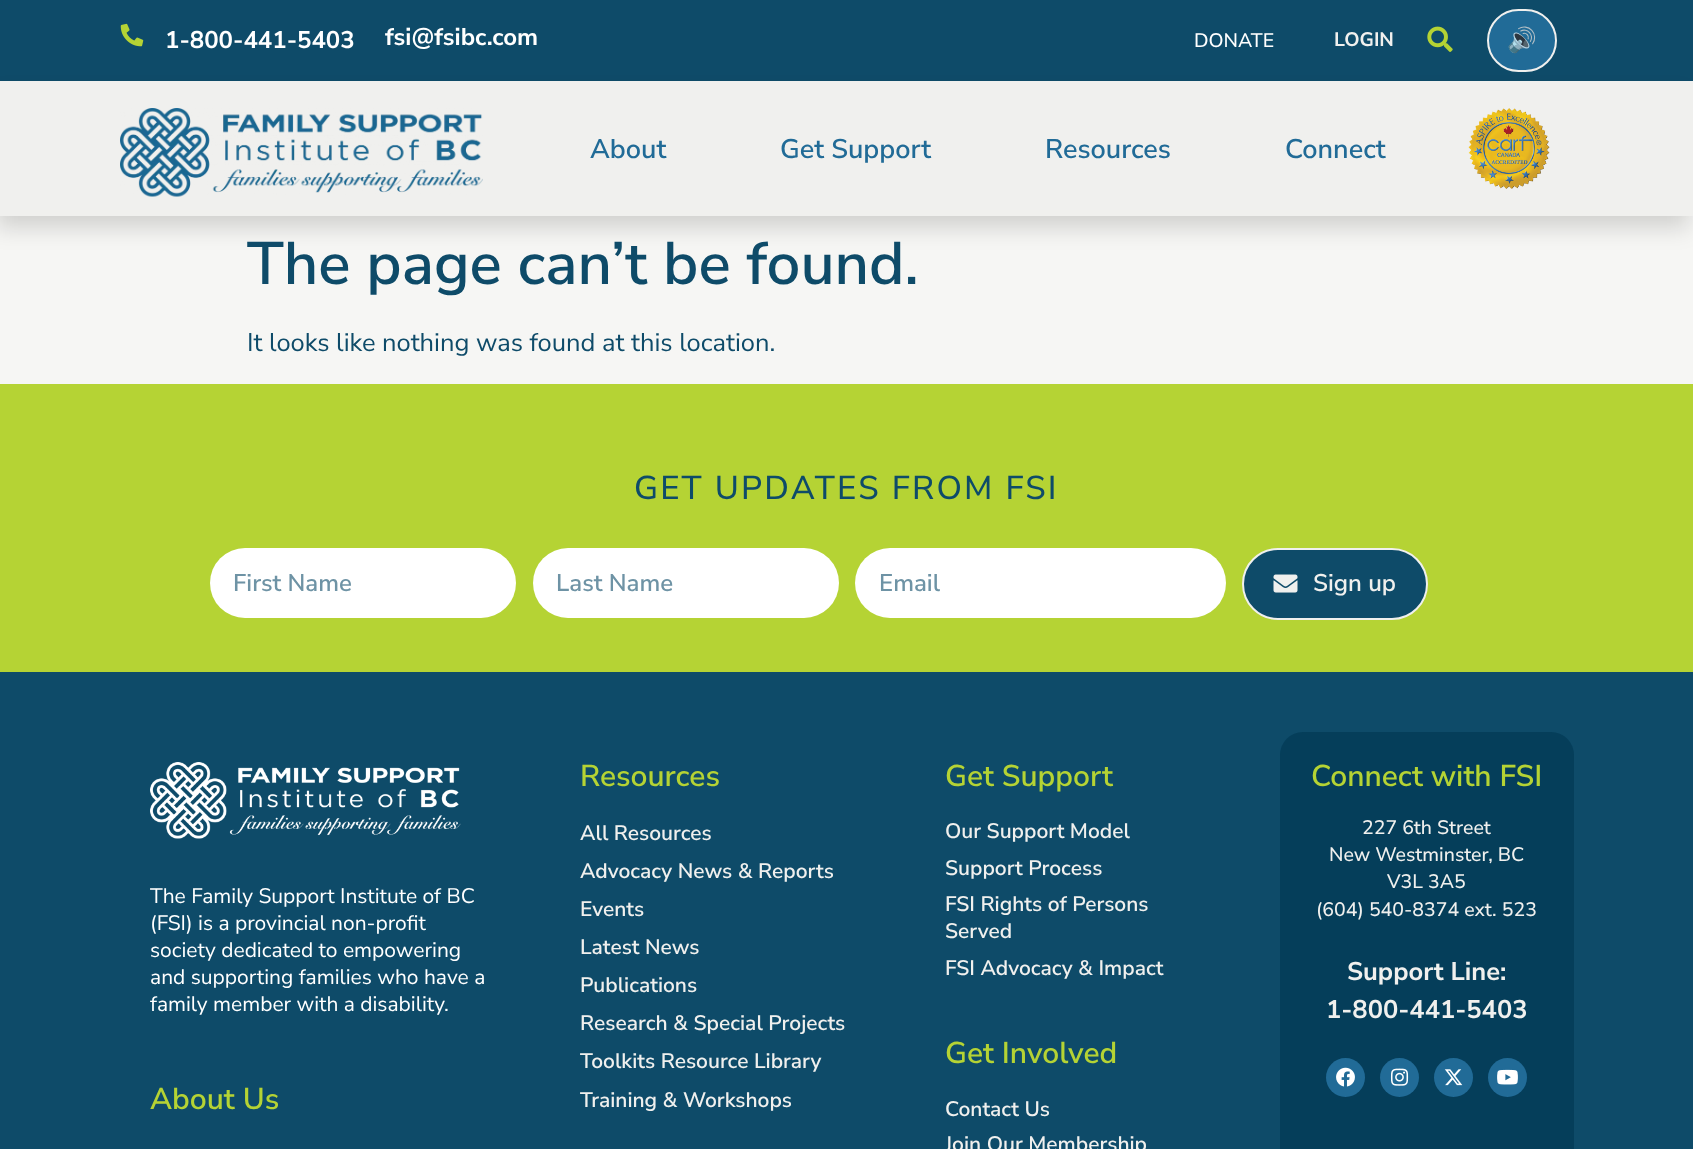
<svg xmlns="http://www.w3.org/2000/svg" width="1693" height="1149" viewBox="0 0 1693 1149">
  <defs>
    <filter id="blur1" x="-50%" y="-200%" width="200%" height="500%"><feGaussianBlur stdDeviation="11"/></filter>
  </defs>
  <rect width="100%" height="100%" fill="#f6f6f4"/>
  <rect x="0" y="0" width="1693" height="81" fill="#0e4b69"/>
  <image x="120" y="23" width="24" height="24" href="img1.png"/>
  <text x="165" y="48" font-family="Nunito Sans" font-size="24" font-weight="bold" fill="#ffffff">1-800-441-5403</text>
  <text x="385" y="45" font-family="Nunito Sans" font-size="24" font-weight="bold" fill="#ffffff">fsi@fsibc.com</text>
  <text x="1194" y="47" font-family="Nunito Sans" font-size="19.5" font-weight="500" fill="#ffffff">DONATE</text>
  <text x="1334" y="46" font-family="Nunito Sans" font-size="19.5" font-weight="bold" fill="#f0f0ee">LOGIN</text>
  <image x="1427" y="26" width="26" height="26" href="img2.png"/>
  <rect x="1488" y="10" width="68" height="61" rx="30.5" fill="#216b97" stroke="#f0f0ee" stroke-width="2"/>
  <text x="1507" y="48" font-family="Noto Color Emoji" font-size="24" fill="#ffffff">🔊</text>
  <rect x="-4" y="93" width="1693" height="135" fill="#000000" fill-opacity="0.15" filter="url(#blur1)"/>
  <rect x="0" y="81" width="1693" height="135" fill="#f0f0ee"/>
  <image x="120" y="108" width="363" height="89" href="img3.png"/>
  <text x="590" y="158" font-family="Nunito Sans" font-size="27" font-weight="600" fill="#216b97">About</text>
  <text x="780" y="158" font-family="Nunito Sans" font-size="27" font-weight="600" fill="#216b97">Get Support</text>
  <text x="1045" y="158" font-family="Nunito Sans" font-size="27" font-weight="600" fill="#216b97">Resources</text>
  <text x="1285" y="158" font-family="Nunito Sans" font-size="27" font-weight="600" fill="#216b97">Connect</text>
  <image x="1468" y="108" width="82" height="81" href="img4.png"/>
  <text x="247" y="284" font-family="Nunito Sans" font-size="60" font-weight="600" fill="#0e4b69">The page can’t be found.</text>
  <text x="247" y="351" font-family="Nunito Sans" font-size="25.5" fill="#0e4b69">It looks like nothing was found at this location.</text>
  <rect x="0" y="384" width="1693" height="288" fill="#b5d334"/>
  <text x="634" y="499" font-family="Nunito Sans" font-size="33" font-weight="500" letter-spacing="2.25" fill="#0e4b69">GET UPDATES FROM FSI</text>
  <rect x="210" y="548" width="306" height="70" rx="35" fill="#ffffff"/>
  <text x="233" y="591" font-family="Nunito Sans" font-size="24" font-weight="600" fill="#6e93a5">First Name</text>
  <rect x="533" y="548" width="306" height="70" rx="35" fill="#ffffff"/>
  <text x="556" y="591" font-family="Nunito Sans" font-size="24" font-weight="600" fill="#6e93a5">Last Name</text>
  <rect x="855" y="548" width="371" height="70" rx="35" fill="#ffffff"/>
  <text x="879" y="591" font-family="Nunito Sans" font-size="24" font-weight="600" fill="#6e93a5">Email</text>
  <rect x="1243" y="549" width="184" height="70" rx="35" fill="#0e4b69" stroke="#f0f0ee" stroke-width="2"/>
  <image x="1273" y="574" width="25" height="19" href="img5.png"/>
  <text x="1313" y="591" font-family="Nunito Sans" font-size="24" font-weight="600" fill="#f0f0ee">Sign up</text>
  <rect x="0" y="672" width="1693" height="477" fill="#0e4b69"/>
  <image x="150" y="762" width="311" height="77" href="img6.png"/>
  <text x="150" y="903" font-family="Nunito Sans" font-size="21" fill="#ffffff">The Family Support Institute of BC</text>
  <text x="150" y="930" font-family="Nunito Sans" font-size="21" fill="#ffffff">(FSI) is a provincial non-profit</text>
  <text x="150" y="957" font-family="Nunito Sans" font-size="21" fill="#ffffff">society dedicated to empowering</text>
  <text x="150" y="984" font-family="Nunito Sans" font-size="21" fill="#ffffff">and supporting families who have a</text>
  <text x="150" y="1011" font-family="Nunito Sans" font-size="21" fill="#ffffff">family member with a disability.</text>
  <text x="150" y="1109" font-family="Nunito Sans" font-size="30" font-weight="600" fill="#b5d334">About Us</text>
  <text x="580" y="786" font-family="Nunito Sans" font-size="30" font-weight="600" fill="#b5d334">Resources</text>
  <text x="580" y="840" font-family="Nunito Sans" font-size="21" font-weight="600" fill="#f0f0ee">All Resources</text>
  <text x="580" y="878" font-family="Nunito Sans" font-size="21" font-weight="600" fill="#f0f0ee">Advocacy News &amp; Reports</text>
  <text x="580" y="916" font-family="Nunito Sans" font-size="21" font-weight="600" fill="#f0f0ee">Events</text>
  <text x="580" y="954" font-family="Nunito Sans" font-size="21" font-weight="600" fill="#f0f0ee">Latest News</text>
  <text x="580" y="992" font-family="Nunito Sans" font-size="21" font-weight="600" fill="#f0f0ee">Publications</text>
  <text x="580" y="1030" font-family="Nunito Sans" font-size="21" font-weight="600" fill="#f0f0ee">Research &amp; Special Projects</text>
  <text x="580" y="1068" font-family="Nunito Sans" font-size="21" font-weight="600" fill="#f0f0ee">Toolkits Resource Library</text>
  <text x="580" y="1107" font-family="Nunito Sans" font-size="21" font-weight="600" fill="#f0f0ee">Training &amp; Workshops</text>
  <text x="945" y="786" font-family="Nunito Sans" font-size="30" font-weight="600" fill="#b5d334">Get Support</text>
  <text x="945" y="838" font-family="Nunito Sans" font-size="21" font-weight="600" fill="#f0f0ee">Our Support Model</text>
  <text x="945" y="875" font-family="Nunito Sans" font-size="21" font-weight="600" fill="#f0f0ee">Support Process</text>
  <text x="945" y="911" font-family="Nunito Sans" font-size="21" font-weight="600" fill="#f0f0ee">FSI Rights of Persons</text>
  <text x="945" y="938" font-family="Nunito Sans" font-size="21" font-weight="600" fill="#f0f0ee">Served</text>
  <text x="945" y="975" font-family="Nunito Sans" font-size="21" font-weight="600" fill="#f0f0ee">FSI Advocacy &amp; Impact</text>
  <text x="945" y="1063" font-family="Nunito Sans" font-size="30" font-weight="600" fill="#b5d334">Get Involved</text>
  <text x="945" y="1116" font-family="Nunito Sans" font-size="21" font-weight="600" fill="#f0f0ee">Contact Us</text>
  <text x="945" y="1151" font-family="Nunito Sans" font-size="21" font-weight="600" fill="#f0f0ee">Join Our Membership</text>
  <rect x="1280" y="732" width="294" height="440" rx="23" fill="#053e5a"/>
  <text x="1311" y="786" font-family="Nunito Sans" font-size="30" font-weight="600" fill="#b5d334">Connect with FSI</text>
  <text x="1362" y="834" font-family="Nunito Sans" font-size="19.5" font-weight="500" fill="#f0f0ee">227 6th Street</text>
  <text x="1329" y="861" font-family="Nunito Sans" font-size="19.5" font-weight="500" fill="#f0f0ee">New Westminster, BC</text>
  <text x="1387" y="888" font-family="Nunito Sans" font-size="19.5" font-weight="500" fill="#f0f0ee">V3L 3A5</text>
  <text x="1316" y="916" font-family="Nunito Sans" font-size="19.5" font-weight="500" fill="#f0f0ee">(604) 540-8374 ext. 523</text>
  <text x="1347" y="980" font-family="Nunito Sans" font-size="25.5" font-weight="bold" fill="#f0f0ee">Support Line:</text>
  <text x="1326" y="1018" font-family="Nunito Sans" font-size="25.5" font-weight="bold" fill="#f0f0ee">1-800-441-5403</text>
  <circle cx="1345.5" cy="1077.5" r="19.5" fill="#216b97"/>
  <image x="1336" y="1067" width="19" height="20" href="img7.png"/>
  <circle cx="1399.5" cy="1077.5" r="19.5" fill="#216b97"/>
  <image x="1390" y="1068" width="19" height="18" href="img8.png"/>
  <circle cx="1453.5" cy="1077.5" r="19.5" fill="#216b97"/>
  <image x="1444" y="1069" width="19" height="17" href="img9.png"/>
  <circle cx="1507.5" cy="1077.5" r="19.5" fill="#216b97"/>
  <image x="1497" y="1069" width="21" height="16" href="img10.png"/>
</svg>
